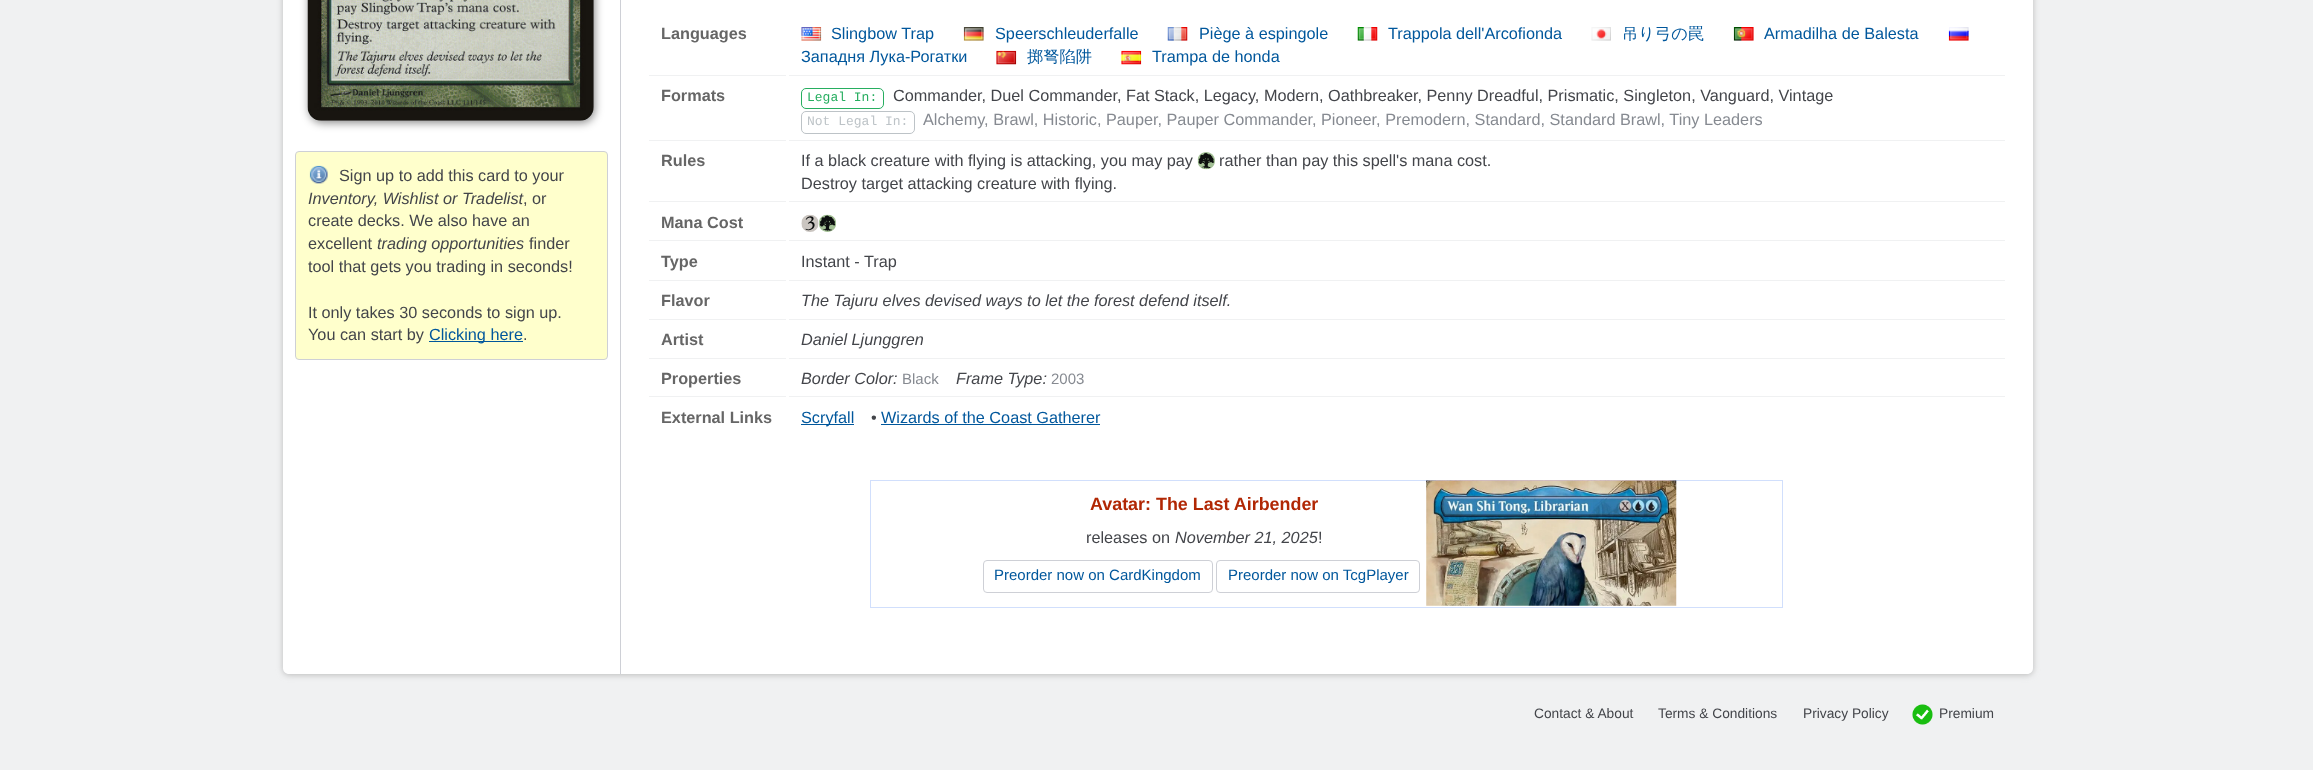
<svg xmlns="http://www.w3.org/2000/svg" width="2313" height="770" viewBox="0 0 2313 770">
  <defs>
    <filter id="blur1" x="-50%" y="-200%" width="200%" height="500%"><feGaussianBlur stdDeviation="3"/></filter>
    <filter id="blur2" x="-50%" y="-200%" width="200%" height="500%"><feGaussianBlur stdDeviation="4"/></filter>
  </defs>
  <rect width="100%" height="100%" fill="#f0f1f2"/>
  <rect x="283" y="-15" width="1750" height="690" rx="6" fill="#bbbbbb" filter="url(#blur1)"/>
  <path d="M283-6H2033V668C2033 671.5 2030.5 674 2027 674H289C285.5 674 283 671.5 283 668Z" fill="#ffffff"/>
  <rect x="620" y="0" width="1" height="674" fill="#ced0d6"/>
  <rect x="309" y="-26" width="286" height="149" rx="14" fill="#000000" fill-opacity="0.45" filter="url(#blur2)"/>
  <image x="307" y="0" width="287" height="121" href="img1.png"/>
  <rect x="295.5" y="151.5" width="312" height="208" rx="3.5" fill="#ffffcc" stroke="#ced0d6"/>
  <image x="309" y="165" width="19" height="19" href="img2.png"/>
  <text x="339" y="181" font-family="Liberation Sans" font-size="16.25" fill="#43454a">Sign up to add this card to your</text>
  <text x="308" y="204" font-family="Liberation Sans" font-size="16.25" font-style="italic" fill="#43454a">Inventory, Wishlist or Tradelist</text>
  <text x="523" y="204" font-family="Liberation Sans" font-size="16.25" fill="#43454a">, or</text>
  <text x="308" y="226" font-family="Liberation Sans" font-size="16.25" fill="#43454a">create decks. We also have an</text>
  <text x="308" y="249" font-family="Liberation Sans" font-size="16.25" fill="#43454a">excellent</text>
  <text x="377" y="249" font-family="Liberation Sans" font-size="16.25" font-style="italic" fill="#43454a">trading opportunities</text>
  <text x="529" y="249" font-family="Liberation Sans" font-size="16.25" fill="#43454a">finder</text>
  <text x="308" y="272" font-family="Liberation Sans" font-size="16.25" fill="#43454a">tool that gets you trading in seconds!</text>
  <text x="308" y="318" font-family="Liberation Sans" font-size="16.25" fill="#43454a">It only takes 30 seconds to sign up.</text>
  <text x="308" y="340" font-family="Liberation Sans" font-size="16.25" fill="#43454a">You can start by</text>
  <rect x="429" y="341" width="94" height="1" fill="#00579c"/>
  <text x="429" y="340" font-family="Liberation Sans" font-size="16.25" fill="#00579c">Clicking here</text>
  <text x="523" y="340" font-family="Liberation Sans" font-size="16.25" fill="#43454a">.</text>
  <rect x="649" y="75" width="137" height="1" fill="#f0f1f2"/>
  <text x="661" y="39" font-family="Liberation Sans" font-size="16.25" font-weight="bold" fill="#666666">Languages</text>
  <rect x="789" y="75" width="1216" height="1" fill="#f0f1f2"/>
  <image x="801" y="27" width="21" height="14" href="img3.png"/>
  <text x="831" y="39" font-family="Liberation Sans" font-size="16.25" fill="#00579c">Slingbow Trap</text>
  <image x="963" y="27" width="21" height="14" href="img4.png"/>
  <text x="995" y="39" font-family="Liberation Sans" font-size="16.25" fill="#00579c">Speerschleuderfalle</text>
  <image x="1167" y="27" width="21" height="14" href="img5.png"/>
  <text x="1199" y="39" font-family="Liberation Sans" font-size="16.25" fill="#00579c">Piège à espingole</text>
  <image x="1357" y="27" width="21" height="14" href="img6.png"/>
  <text x="1388" y="39" font-family="Liberation Sans" font-size="16.25" fill="#00579c">Trappola dell'Arcofionda</text>
  <image x="1591" y="27" width="20" height="14" href="img7.png"/>
  <text x="1622" y="39" font-family="WenQuanYi Zen Hei" font-size="16.25" font-weight="500" fill="#00579c">吊り弓の罠</text>
  <image x="1733" y="27" width="21" height="14" href="img8.png"/>
  <text x="1764" y="39" font-family="Liberation Sans" font-size="16.25" fill="#00579c">Armadilha de Balesta</text>
  <image x="1948" y="27" width="21" height="14" href="img9.png"/>
  <text x="801" y="62" font-family="Liberation Sans" font-size="16.25" fill="#00579c">Западня Лука-Рогатки</text>
  <image x="996" y="50" width="21" height="15" href="img10.png"/>
  <text x="1027" y="62" font-family="WenQuanYi Zen Hei" font-size="16.25" font-weight="500" fill="#00579c">掷弩陷阱</text>
  <image x="1121" y="50" width="21" height="15" href="img11.png"/>
  <text x="1152" y="62" font-family="Liberation Sans" font-size="16.25" fill="#00579c">Trampa de honda</text>
  <rect x="649" y="140" width="137" height="1" fill="#f0f1f2"/>
  <text x="661" y="101" font-family="Liberation Sans" font-size="16.25" font-weight="bold" fill="#666666">Formats</text>
  <rect x="789" y="140" width="1216" height="1" fill="#f0f1f2"/>
  <rect x="801.5" y="88.5" width="82" height="20" rx="4.5" fill="none" stroke="#27ae60"/>
  <text x="807" y="101" font-family="Liberation Mono" font-size="13" fill="#27ae60">Legal In:</text>
  <text x="893" y="101" font-family="Liberation Sans" font-size="16.25" fill="#43454a">Commander, Duel Commander, Fat Stack, Legacy, Modern, Oathbreaker, Penny Dreadful, Prismatic, Singleton, Vanguard, Vintage</text>
  <rect x="801.5" y="111.5" width="113" height="22" rx="4.5" fill="none" stroke="#bdc3c7"/>
  <text x="807" y="125" font-family="Liberation Mono" font-size="13" fill="#bdc3c7">Not Legal In:</text>
  <text x="923" y="125" font-family="Liberation Sans" font-size="16.25" fill="#868a91">Alchemy, Brawl, Historic, Pauper, Pauper Commander, Pioneer, Premodern, Standard, Standard Brawl, Tiny Leaders</text>
  <rect x="649" y="201" width="137" height="1" fill="#f0f1f2"/>
  <text x="661" y="166" font-family="Liberation Sans" font-size="16.25" font-weight="bold" fill="#666666">Rules</text>
  <rect x="789" y="201" width="1216" height="1" fill="#f0f1f2"/>
  <text x="801" y="166" font-family="Liberation Sans" font-size="16.25" fill="#43454a">If a black creature with flying is attacking, you may pay</text>
  <image x="1197" y="152" width="18" height="18" href="img12.png"/>
  <text x="1219" y="166" font-family="Liberation Sans" font-size="16.25" fill="#43454a">rather than pay this spell's mana cost.</text>
  <text x="801" y="189" font-family="Liberation Sans" font-size="16.25" fill="#43454a">Destroy target attacking creature with flying.</text>
  <rect x="649" y="240" width="137" height="1" fill="#f0f1f2"/>
  <text x="661" y="228" font-family="Liberation Sans" font-size="16.25" font-weight="bold" fill="#666666">Mana Cost</text>
  <rect x="789" y="240" width="1216" height="1" fill="#f0f1f2"/>
  <image x="801" y="214" width="18" height="18" href="img13.png"/>
  <image x="819" y="214" width="17" height="18" href="img14.png"/>
  <rect x="649" y="280" width="137" height="1" fill="#f0f1f2"/>
  <text x="661" y="267" font-family="Liberation Sans" font-size="16.25" font-weight="bold" fill="#666666">Type</text>
  <rect x="789" y="280" width="1216" height="1" fill="#f0f1f2"/>
  <text x="801" y="267" font-family="Liberation Sans" font-size="16.25" fill="#43454a">Instant - Trap</text>
  <rect x="649" y="319" width="137" height="1" fill="#f0f1f2"/>
  <text x="661" y="306" font-family="Liberation Sans" font-size="16.25" font-weight="bold" fill="#666666">Flavor</text>
  <rect x="789" y="319" width="1216" height="1" fill="#f0f1f2"/>
  <text x="801" y="306" font-family="Liberation Sans" font-size="16.25" font-style="italic" fill="#43454a">The Tajuru elves devised ways to let the forest defend itself.</text>
  <rect x="649" y="358" width="137" height="1" fill="#f0f1f2"/>
  <text x="661" y="345" font-family="Liberation Sans" font-size="16.25" font-weight="bold" fill="#666666">Artist</text>
  <rect x="789" y="358" width="1216" height="1" fill="#f0f1f2"/>
  <text x="801" y="345" font-family="Liberation Sans" font-size="16.25" font-style="italic" fill="#43454a">Daniel Ljunggren</text>
  <rect x="649" y="396" width="137" height="1" fill="#f0f1f2"/>
  <text x="661" y="384" font-family="Liberation Sans" font-size="16.25" font-weight="bold" fill="#666666">Properties</text>
  <rect x="789" y="396" width="1216" height="1" fill="#f0f1f2"/>
  <text x="801" y="384" font-family="Liberation Sans" font-size="16.25" font-style="italic" fill="#43454a">Border Color:</text>
  <text x="902" y="384" font-family="Liberation Sans" font-size="15" fill="#868a91">Black</text>
  <text x="956" y="384" font-family="Liberation Sans" font-size="16.25" font-style="italic" fill="#43454a">Frame Type:</text>
  <text x="1051" y="384" font-family="Liberation Sans" font-size="15" fill="#868a91">2003</text>
  <text x="661" y="423" font-family="Liberation Sans" font-size="16.25" font-weight="bold" fill="#666666">External Links</text>
  <rect x="801" y="424" width="53" height="1" fill="#00579c"/>
  <text x="801" y="423" font-family="Liberation Sans" font-size="16.25" fill="#00579c">Scryfall</text>
  <text x="871" y="423" font-family="Liberation Sans" font-size="16.25" fill="#43454a">•</text>
  <text x="881" y="423" font-family="Liberation Sans" font-size="16.25" fill="#00579c">Wizards of the Coast Gatherer</text>
  <rect x="881" y="424" width="219" height="1" fill="#00579c"/>
  <rect x="870.5" y="480.5" width="912" height="127" fill="none" stroke="#d1dffc"/>
  <image x="1426" y="480" width="251" height="1" href="img15.png"/>
  <text x="1090" y="510" font-family="Liberation Sans" font-size="17.9" font-weight="bold" fill="#b12704">Avatar: The Last Airbender</text>
  <text x="1086" y="543" font-family="Liberation Sans" font-size="16.25" fill="#43454a">releases on</text>
  <text x="1175" y="543" font-family="Liberation Sans" font-size="16.25" font-style="italic" fill="#43454a">November 21, 2025</text>
  <text x="1318" y="543" font-family="Liberation Sans" font-size="16.25" fill="#43454a">!</text>
  <rect x="983.5" y="560.5" width="229" height="32" rx="3.5" fill="none" stroke="#ced0d6"/>
  <text x="994" y="580" font-family="Liberation Sans" font-size="15" fill="#00579c">Preorder now on CardKingdom</text>
  <rect x="1216.5" y="560.5" width="203" height="32" rx="3.5" fill="none" stroke="#ced0d6"/>
  <text x="1228" y="580" font-family="Liberation Sans" font-size="15" fill="#00579c">Preorder now on TcgPlayer</text>
  <image x="1426" y="480" width="251" height="126" href="img16.png"/>
  <text x="1534" y="718" font-family="Liberation Sans" font-size="13.75" fill="#43454a">Contact &amp; About</text>
  <text x="1658" y="718" font-family="Liberation Sans" font-size="13.75" fill="#43454a">Terms &amp; Conditions</text>
  <text x="1803" y="718" font-family="Liberation Sans" font-size="13.75" fill="#43454a">Privacy Policy</text>
  <image x="1912" y="704" width="21" height="21" href="img17.png"/>
  <text x="1939" y="718" font-family="Liberation Sans" font-size="13.75" fill="#43454a">Premium</text>
</svg>
